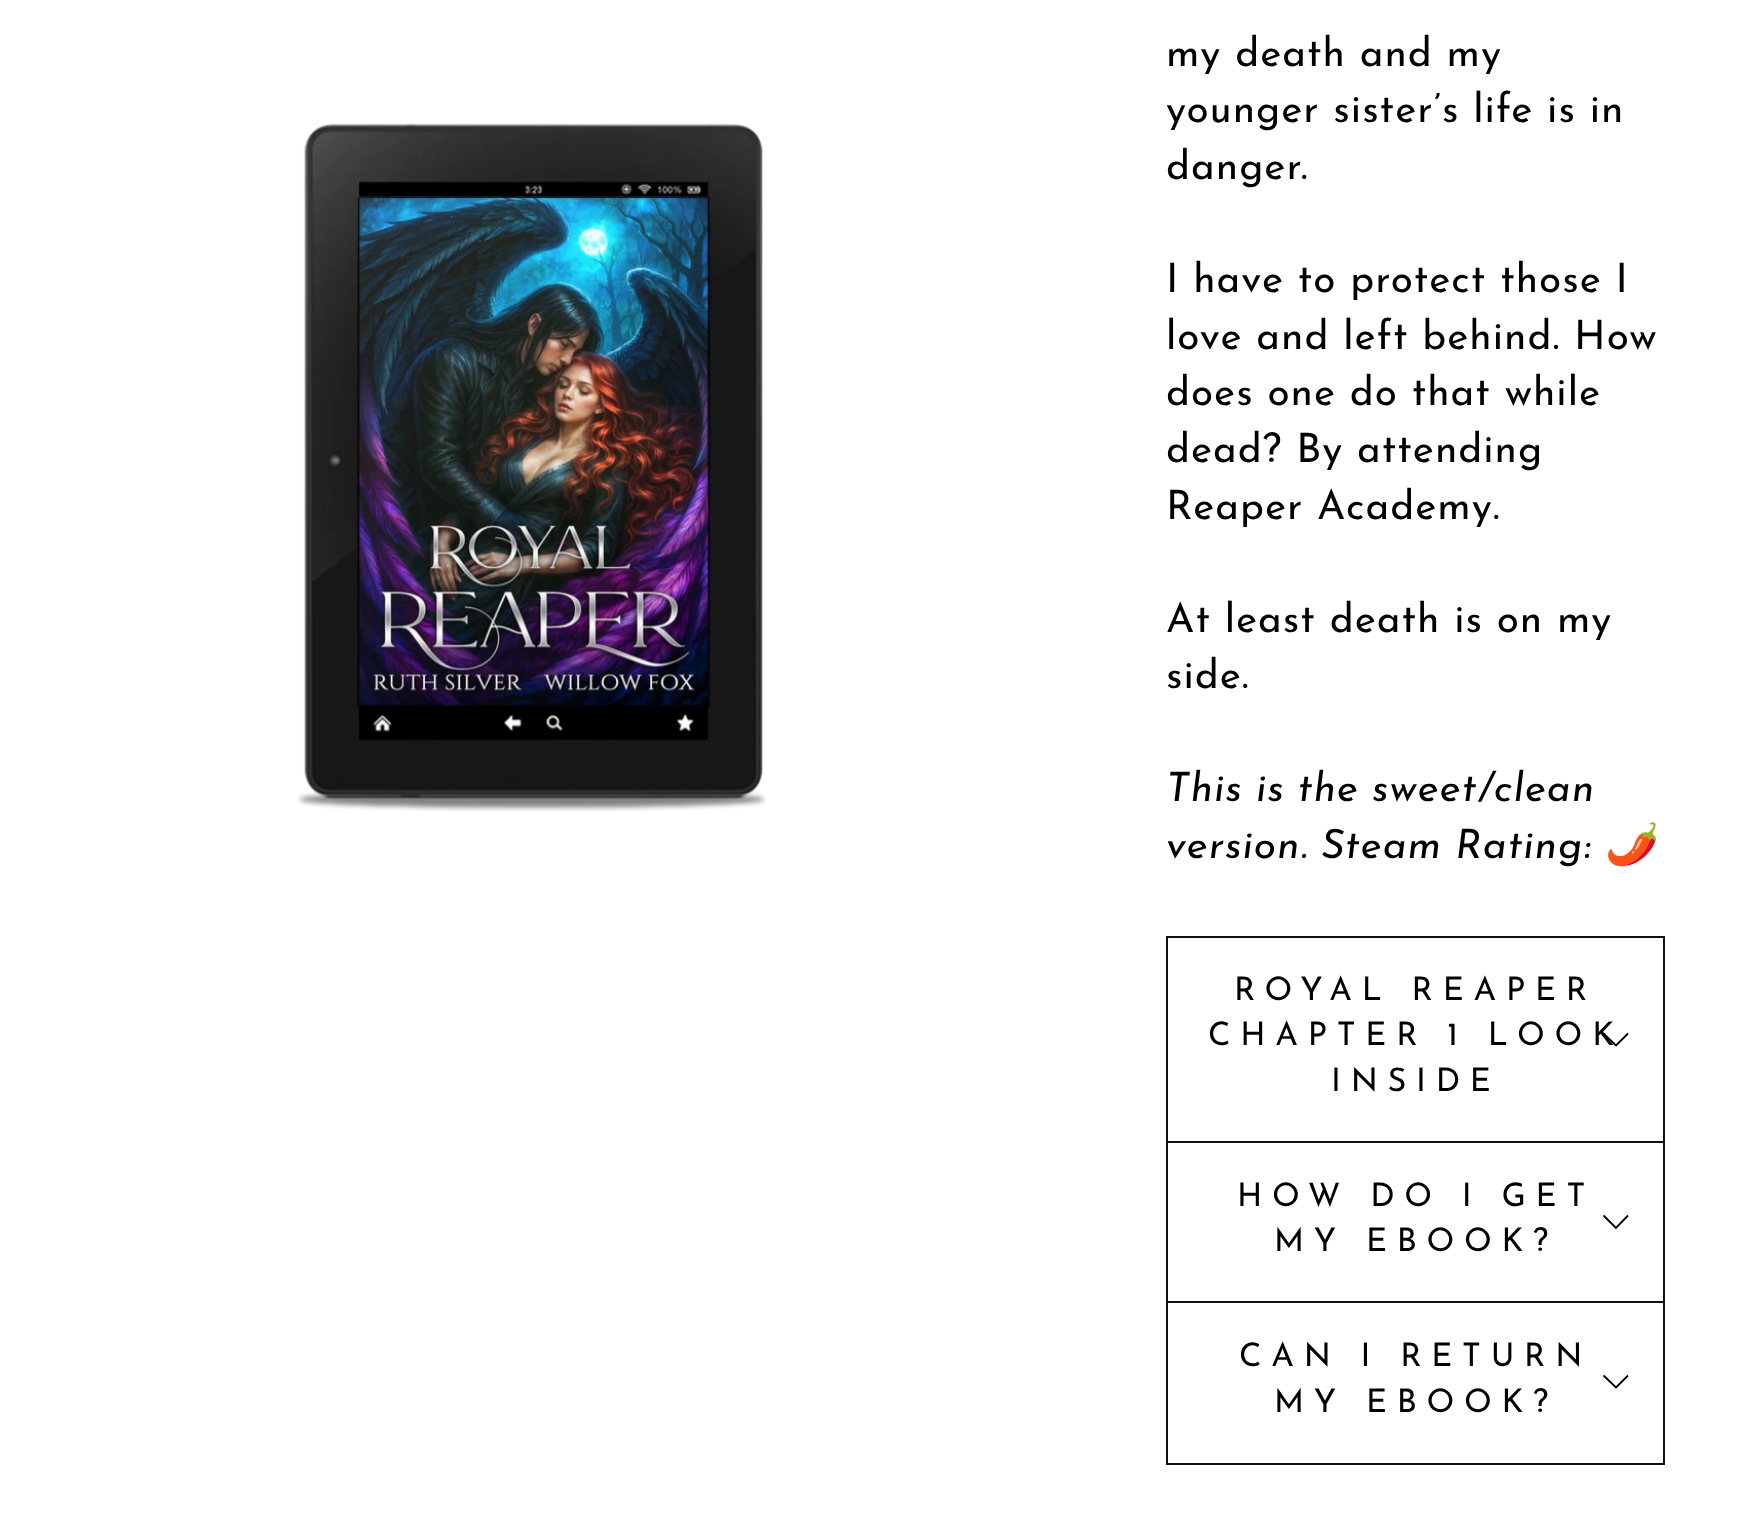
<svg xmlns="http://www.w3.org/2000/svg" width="1755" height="1528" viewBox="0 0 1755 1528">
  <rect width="100%" height="100%" fill="#ffffff"/>
  <image x="297" y="123" width="470" height="689" href="img1.png"/>
  <text x="1166" y="66" font-family="Josefin Sans" font-size="40.5" letter-spacing="1" fill="#000000">my death and my</text>
  <text x="1166" y="122" font-family="Josefin Sans" font-size="40.5" letter-spacing="1" fill="#000000">younger sister’s life is in</text>
  <text x="1166" y="179" font-family="Josefin Sans" font-size="40.5" letter-spacing="1" fill="#000000">danger.</text>
  <text x="1166" y="292" font-family="Josefin Sans" font-size="40.5" letter-spacing="1" fill="#000000">I have to protect those I</text>
  <text x="1166" y="349" font-family="Josefin Sans" font-size="40.5" letter-spacing="1" fill="#000000">love and left behind. How</text>
  <text x="1166" y="405" font-family="Josefin Sans" font-size="40.5" letter-spacing="1" fill="#000000">does one do that while</text>
  <text x="1166" y="462" font-family="Josefin Sans" font-size="40.5" letter-spacing="1" fill="#000000">dead? By attending</text>
  <text x="1166" y="519" font-family="Josefin Sans" font-size="40.5" letter-spacing="1" fill="#000000">Reaper Academy.</text>
  <text x="1166" y="632" font-family="Josefin Sans" font-size="40.5" letter-spacing="1" fill="#000000">At least death is on my</text>
  <text x="1166" y="688" font-family="Josefin Sans" font-size="40.5" letter-spacing="1" fill="#000000">side.</text>
  <text x="1166" y="801" font-family="Josefin Sans" font-size="40.5" font-style="italic" letter-spacing="1" fill="#000000">This is the sweet/clean</text>
  <text x="1166" y="858" font-family="Josefin Sans" font-size="40.5" font-style="italic" letter-spacing="1" fill="#000000">version. Steam Rating:</text>
  <text x="1604" y="858" font-family="Noto Color Emoji" font-size="40.5" font-style="italic" letter-spacing="1" fill="#000000">🌶️</text>
  <rect x="1166" y="1141" width="499" height="2" fill="#111111"/>
  <rect x="1166" y="936" width="499" height="2" fill="#111111"/>
  <rect x="1663" y="936" width="2" height="205" fill="#111111"/>
  <rect x="1166" y="936" width="2" height="205" fill="#111111"/>
  <text x="1234" y="1000" font-family="Josefin Sans" font-size="32.4" letter-spacing="9.75" fill="#000000">ROYAL REAPER</text>
  <text x="1208" y="1045" font-family="Josefin Sans" font-size="32.4" letter-spacing="9.75" fill="#000000">CHAPTER 1 LOOK</text>
  <path d="M1603.5 1033.5L1616 1045.5L1628 1033.5" fill="none" stroke="#000000" stroke-width="1.9"/>
  <text x="1331" y="1091" font-family="Josefin Sans" font-size="32.4" letter-spacing="9.75" fill="#000000">INSIDE</text>
  <rect x="1166" y="1301" width="499" height="2" fill="#111111"/>
  <rect x="1663" y="1143" width="2" height="158" fill="#111111"/>
  <rect x="1166" y="1143" width="2" height="158" fill="#111111"/>
  <text x="1237" y="1206" font-family="Josefin Sans" font-size="32.4" letter-spacing="9.75" fill="#000000">HOW DO I GET</text>
  <path d="M1603.5 1215.5L1616 1228L1628 1215.5" fill="none" stroke="#000000" stroke-width="1.9"/>
  <text x="1274" y="1251" font-family="Josefin Sans" font-size="32.4" letter-spacing="9.75" fill="#000000">MY EBOOK?</text>
  <rect x="1166" y="1463" width="499" height="2" fill="#111111"/>
  <rect x="1663" y="1303" width="2" height="160" fill="#111111"/>
  <rect x="1166" y="1303" width="2" height="160" fill="#111111"/>
  <text x="1239" y="1366" font-family="Josefin Sans" font-size="32.4" letter-spacing="9.75" fill="#000000">CAN I RETURN</text>
  <path d="M1603.5 1375.5L1616 1387.5L1628 1375.5" fill="none" stroke="#000000" stroke-width="1.9"/>
  <text x="1274" y="1412" font-family="Josefin Sans" font-size="32.4" letter-spacing="9.75" fill="#000000">MY EBOOK?</text>
</svg>
